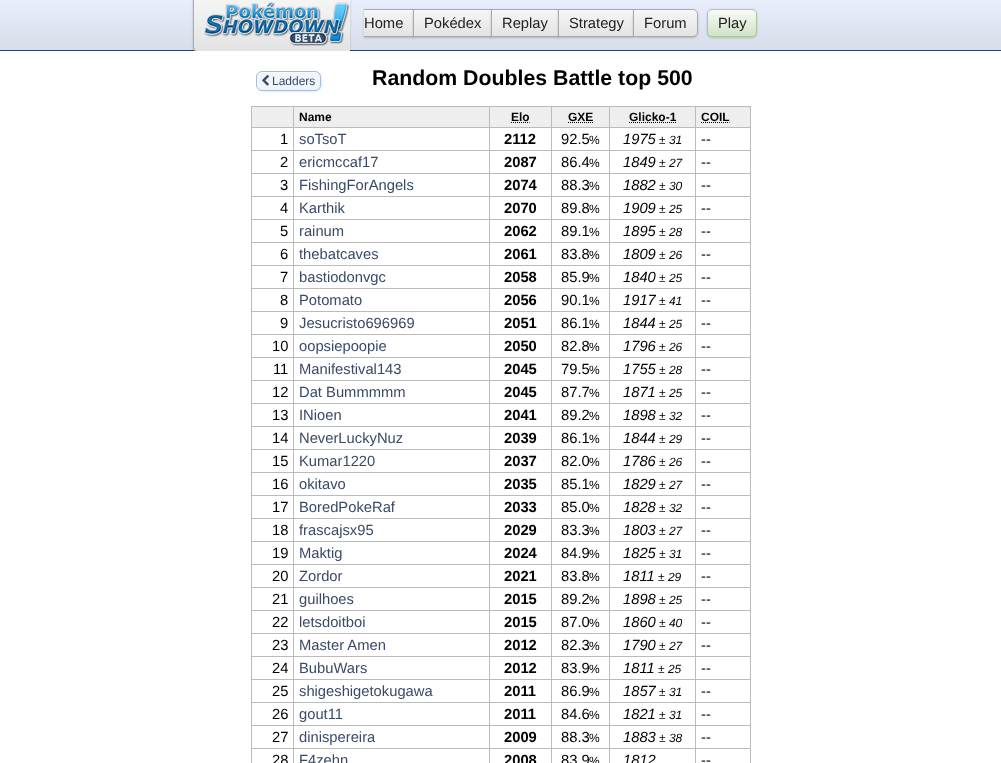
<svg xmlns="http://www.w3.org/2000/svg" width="1001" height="763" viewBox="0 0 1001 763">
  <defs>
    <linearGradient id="g1" gradientUnits="userSpaceOnUse" x1="0" y1="0" x2="0" y2="50"><stop offset="0" stop-color="#e8eefc"/><stop offset="1" stop-color="#d7deea"/></linearGradient>
    <filter id="blur1" x="-50%" y="-200%" width="200%" height="500%"><feGaussianBlur stdDeviation="1"/></filter>
    <clipPath id="clip1"><path d="M198-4H350V52H198C195 52 193 50 193 47V1C193-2 195-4 198-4Z"/></clipPath>
    <linearGradient id="g2" gradientUnits="userSpaceOnUse" x1="194" y1="-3" x2="194" y2="51"><stop offset="0" stop-color="#f6f6f6"/><stop offset="1" stop-color="#e3e3e3"/></linearGradient>
    <linearGradient id="g3" gradientUnits="userSpaceOnUse" x1="364" y1="10" x2="364" y2="36"><stop offset="0" stop-color="#f6f6f6"/><stop offset="1" stop-color="#e3e3e3"/></linearGradient>
    <linearGradient id="g4" gradientUnits="userSpaceOnUse" x1="414" y1="10" x2="414" y2="36"><stop offset="0" stop-color="#f6f6f6"/><stop offset="1" stop-color="#e3e3e3"/></linearGradient>
    <linearGradient id="g5" gradientUnits="userSpaceOnUse" x1="492" y1="10" x2="492" y2="36"><stop offset="0" stop-color="#f6f6f6"/><stop offset="1" stop-color="#e3e3e3"/></linearGradient>
    <linearGradient id="g6" gradientUnits="userSpaceOnUse" x1="559" y1="10" x2="559" y2="36"><stop offset="0" stop-color="#f6f6f6"/><stop offset="1" stop-color="#e3e3e3"/></linearGradient>
    <clipPath id="clip2"><path d="M633 9H693C696 9 698 11 698 14V32C698 35 696 37 693 37H633Z"/></clipPath>
    <linearGradient id="g7" gradientUnits="userSpaceOnUse" x1="634" y1="10" x2="634" y2="36"><stop offset="0" stop-color="#f6f6f6"/><stop offset="1" stop-color="#e3e3e3"/></linearGradient>
    <clipPath id="clip3"><rect x="707" y="9" width="50" height="28" rx="5"/></clipPath>
    <linearGradient id="g8" gradientUnits="userSpaceOnUse" x1="708" y1="10" x2="708" y2="36"><stop offset="0" stop-color="#f7faf5"/><stop offset="1" stop-color="#d2e2ca"/></linearGradient>
  </defs>
  <rect width="100%" height="100%" fill="#ffffff"/>
  <rect x="0" y="0" width="1001" height="50" fill="url(#g1)"/>
  <rect x="0" y="50" width="1001" height="1" fill="#2a4066"/>
  <rect x="193" y="-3" width="157" height="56" rx="5" fill="#000000" fill-opacity="0.2" filter="url(#blur1)"/>
  <g clip-path="url(#clip1)">
    <rect x="193" y="0" width="157" height="51" fill="url(#g2)"/>
  </g>
  <path d="M198-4H350V52H198C195 52 193 50 193 47V1C193-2 195-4 198-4ZM198-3H350V51H198C196 51 194 49 194 47V1C194-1 196-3 198-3Z" fill="#aaaaaa" fill-rule="evenodd"/>
  <rect x="364" y="10" width="50" height="28" fill="#000000" fill-opacity="0.2" filter="url(#blur1)"/>
  <rect x="364" y="10" width="49" height="26" fill="url(#g3)"/>
  <rect x="364" y="9" width="50" height="1" fill="#aaaaaa"/>
  <rect x="364" y="36" width="50" height="1" fill="#aaaaaa"/>
  <image x="204" y="2" width="146" height="44" href="img1.png"/>
  <text x="364" y="28" font-family="Liberation Sans" font-size="14.75" fill="#222222">Home</text>
  <rect x="413" y="10" width="79" height="28" fill="#000000" fill-opacity="0.2" filter="url(#blur1)"/>
  <rect x="414" y="10" width="77" height="26" fill="url(#g4)"/>
  <rect x="413.5" y="9.5" width="78" height="27" fill="none" stroke="#aaaaaa"/>
  <text x="424" y="28" font-family="Liberation Sans" font-size="14.75" fill="#222222">Pokédex</text>
  <rect x="491" y="10" width="68" height="28" fill="#000000" fill-opacity="0.2" filter="url(#blur1)"/>
  <rect x="492" y="10" width="66" height="26" fill="url(#g5)"/>
  <rect x="491.5" y="9.5" width="67" height="27" fill="none" stroke="#aaaaaa"/>
  <text x="502" y="28" font-family="Liberation Sans" font-size="14.75" fill="#222222">Replay</text>
  <rect x="558" y="10" width="76" height="28" fill="#000000" fill-opacity="0.2" filter="url(#blur1)"/>
  <rect x="559" y="10" width="74" height="26" fill="url(#g6)"/>
  <rect x="558.5" y="9.5" width="75" height="27" fill="none" stroke="#aaaaaa"/>
  <text x="569" y="28" font-family="Liberation Sans" font-size="14.75" fill="#222222">Strategy</text>
  <rect x="633" y="10" width="65" height="28" rx="5" fill="#000000" fill-opacity="0.2" filter="url(#blur1)"/>
  <g clip-path="url(#clip2)">
    <rect x="634" y="10" width="64" height="26" fill="url(#g7)"/>
  </g>
  <path d="M633.5 9.5H693C695.5 9.5 697.5 11.5 697.5 14V32C697.5 34.5 695.5 36.5 693 36.5H633.5Z" fill="none" stroke="#aaaaaa"/>
  <text x="644" y="28" font-family="Liberation Sans" font-size="14.75" fill="#222222">Forum</text>
  <rect x="707" y="10" width="50" height="28" rx="5" fill="#000000" fill-opacity="0.2" filter="url(#blur1)"/>
  <g clip-path="url(#clip3)">
    <rect x="707" y="10" width="50" height="26" fill="url(#g8)"/>
  </g>
  <rect x="707.5" y="9.5" width="49" height="27" rx="4.5" fill="none" stroke="#abc99c"/>
  <text x="718" y="28" font-family="Liberation Sans" font-size="14.75" fill="#222222">Play</text>
  <rect x="192" y="51" width="159" height="4" fill="#ffffff"/>
  <rect x="257" y="72" width="65" height="20" rx="6" fill="#000000" fill-opacity="0.08" filter="url(#blur1)"/>
  <rect x="256" y="71" width="65" height="20" rx="6" fill="#f0f5fc"/>
  <path d="M263 73H316L319 74C318 73 316 72 315 72H262C259 72 257 74 257 77V85C257 86 258 88 259 89C258 87 258 85 258 83C258 79 257 73 263 73Z" fill="#f9fbfe"/>
  <rect x="256.5" y="71.5" width="64" height="19" rx="5.5" fill="none" stroke="#a6bbd4"/>
  <image x="262" y="74" width="7" height="12" href="img2.png"/>
  <text x="272" y="85" font-family="Liberation Sans" font-size="12" fill="#3a4a66">Ladders</text>
  <text x="372" y="85" font-family="Liberation Sans" font-size="21.3" font-weight="bold" fill="#000000">Random Doubles Battle top 500</text>
  <rect x="251" y="106" width="500" height="1" fill="#bbbbbb"/>
  <rect x="750" y="106" width="1" height="657" fill="#bbbbbb"/>
  <rect x="251" y="106" width="1" height="657" fill="#bbbbbb"/>
  <rect x="252" y="107" width="41" height="20" fill="#eeeeee"/>
  <rect x="294" y="107" width="195" height="20" fill="#eeeeee"/>
  <rect x="695" y="127" width="56" height="1" fill="#bbbbbb"/>
  <rect x="695" y="150" width="56" height="1" fill="#bbbbbb"/>
  <rect x="695" y="173" width="56" height="1" fill="#bbbbbb"/>
  <rect x="695" y="196" width="56" height="1" fill="#bbbbbb"/>
  <rect x="695" y="219" width="56" height="1" fill="#bbbbbb"/>
  <rect x="695" y="242" width="56" height="1" fill="#bbbbbb"/>
  <rect x="695" y="265" width="56" height="1" fill="#bbbbbb"/>
  <rect x="695" y="288" width="56" height="1" fill="#bbbbbb"/>
  <rect x="695" y="311" width="56" height="1" fill="#bbbbbb"/>
  <rect x="695" y="334" width="56" height="1" fill="#bbbbbb"/>
  <rect x="695" y="357" width="56" height="1" fill="#bbbbbb"/>
  <rect x="695" y="380" width="56" height="1" fill="#bbbbbb"/>
  <rect x="695" y="403" width="56" height="1" fill="#bbbbbb"/>
  <rect x="695" y="426" width="56" height="1" fill="#bbbbbb"/>
  <rect x="695" y="449" width="56" height="1" fill="#bbbbbb"/>
  <rect x="695" y="472" width="56" height="1" fill="#bbbbbb"/>
  <rect x="695" y="495" width="56" height="1" fill="#bbbbbb"/>
  <rect x="695" y="518" width="56" height="1" fill="#bbbbbb"/>
  <rect x="695" y="541" width="56" height="1" fill="#bbbbbb"/>
  <rect x="695" y="564" width="56" height="1" fill="#bbbbbb"/>
  <rect x="695" y="587" width="56" height="1" fill="#bbbbbb"/>
  <rect x="695" y="610" width="56" height="1" fill="#bbbbbb"/>
  <rect x="695" y="633" width="56" height="1" fill="#bbbbbb"/>
  <rect x="695" y="656" width="56" height="1" fill="#bbbbbb"/>
  <rect x="695" y="679" width="56" height="1" fill="#bbbbbb"/>
  <rect x="695" y="702" width="56" height="1" fill="#bbbbbb"/>
  <rect x="695" y="725" width="56" height="1" fill="#bbbbbb"/>
  <rect x="695" y="748" width="56" height="1" fill="#bbbbbb"/>
  <rect x="695" y="748" width="1" height="15" fill="#bbbbbb"/>
  <rect x="609" y="748" width="87" height="1" fill="#bbbbbb"/>
  <rect x="695" y="725" width="1" height="24" fill="#bbbbbb"/>
  <rect x="609" y="725" width="87" height="1" fill="#bbbbbb"/>
  <rect x="695" y="702" width="1" height="24" fill="#bbbbbb"/>
  <rect x="609" y="702" width="87" height="1" fill="#bbbbbb"/>
  <rect x="695" y="679" width="1" height="24" fill="#bbbbbb"/>
  <rect x="609" y="679" width="87" height="1" fill="#bbbbbb"/>
  <rect x="695" y="656" width="1" height="24" fill="#bbbbbb"/>
  <rect x="609" y="656" width="87" height="1" fill="#bbbbbb"/>
  <rect x="695" y="633" width="1" height="24" fill="#bbbbbb"/>
  <rect x="609" y="633" width="87" height="1" fill="#bbbbbb"/>
  <rect x="695" y="610" width="1" height="24" fill="#bbbbbb"/>
  <rect x="609" y="610" width="87" height="1" fill="#bbbbbb"/>
  <rect x="695" y="587" width="1" height="24" fill="#bbbbbb"/>
  <rect x="609" y="587" width="87" height="1" fill="#bbbbbb"/>
  <rect x="695" y="564" width="1" height="24" fill="#bbbbbb"/>
  <rect x="609" y="564" width="87" height="1" fill="#bbbbbb"/>
  <rect x="695" y="541" width="1" height="24" fill="#bbbbbb"/>
  <rect x="609" y="541" width="87" height="1" fill="#bbbbbb"/>
  <rect x="695" y="518" width="1" height="24" fill="#bbbbbb"/>
  <rect x="609" y="518" width="87" height="1" fill="#bbbbbb"/>
  <rect x="695" y="495" width="1" height="24" fill="#bbbbbb"/>
  <rect x="609" y="495" width="87" height="1" fill="#bbbbbb"/>
  <rect x="695" y="472" width="1" height="24" fill="#bbbbbb"/>
  <rect x="609" y="472" width="87" height="1" fill="#bbbbbb"/>
  <rect x="695" y="449" width="1" height="24" fill="#bbbbbb"/>
  <rect x="609" y="449" width="87" height="1" fill="#bbbbbb"/>
  <rect x="695" y="426" width="1" height="24" fill="#bbbbbb"/>
  <rect x="609" y="426" width="87" height="1" fill="#bbbbbb"/>
  <rect x="695" y="403" width="1" height="24" fill="#bbbbbb"/>
  <rect x="609" y="403" width="87" height="1" fill="#bbbbbb"/>
  <rect x="695" y="380" width="1" height="24" fill="#bbbbbb"/>
  <rect x="609" y="380" width="87" height="1" fill="#bbbbbb"/>
  <rect x="695" y="357" width="1" height="24" fill="#bbbbbb"/>
  <rect x="609" y="357" width="87" height="1" fill="#bbbbbb"/>
  <rect x="695" y="334" width="1" height="24" fill="#bbbbbb"/>
  <rect x="609" y="334" width="87" height="1" fill="#bbbbbb"/>
  <rect x="695" y="311" width="1" height="24" fill="#bbbbbb"/>
  <rect x="609" y="311" width="87" height="1" fill="#bbbbbb"/>
  <rect x="695" y="288" width="1" height="24" fill="#bbbbbb"/>
  <rect x="609" y="288" width="87" height="1" fill="#bbbbbb"/>
  <rect x="695" y="265" width="1" height="24" fill="#bbbbbb"/>
  <rect x="609" y="265" width="87" height="1" fill="#bbbbbb"/>
  <rect x="695" y="242" width="1" height="24" fill="#bbbbbb"/>
  <rect x="609" y="242" width="87" height="1" fill="#bbbbbb"/>
  <rect x="695" y="219" width="1" height="24" fill="#bbbbbb"/>
  <rect x="609" y="219" width="87" height="1" fill="#bbbbbb"/>
  <rect x="695" y="196" width="1" height="24" fill="#bbbbbb"/>
  <rect x="609" y="196" width="87" height="1" fill="#bbbbbb"/>
  <rect x="695" y="173" width="1" height="24" fill="#bbbbbb"/>
  <rect x="609" y="173" width="87" height="1" fill="#bbbbbb"/>
  <rect x="695" y="150" width="1" height="24" fill="#bbbbbb"/>
  <rect x="609" y="150" width="87" height="1" fill="#bbbbbb"/>
  <rect x="695" y="127" width="1" height="24" fill="#bbbbbb"/>
  <rect x="609" y="127" width="87" height="1" fill="#bbbbbb"/>
  <rect x="609" y="748" width="1" height="15" fill="#bbbbbb"/>
  <rect x="551" y="748" width="59" height="1" fill="#bbbbbb"/>
  <rect x="609" y="725" width="1" height="24" fill="#bbbbbb"/>
  <rect x="551" y="725" width="59" height="1" fill="#bbbbbb"/>
  <rect x="609" y="702" width="1" height="24" fill="#bbbbbb"/>
  <rect x="551" y="702" width="59" height="1" fill="#bbbbbb"/>
  <rect x="609" y="679" width="1" height="24" fill="#bbbbbb"/>
  <rect x="551" y="679" width="59" height="1" fill="#bbbbbb"/>
  <rect x="609" y="656" width="1" height="24" fill="#bbbbbb"/>
  <rect x="551" y="656" width="59" height="1" fill="#bbbbbb"/>
  <rect x="609" y="633" width="1" height="24" fill="#bbbbbb"/>
  <rect x="551" y="633" width="59" height="1" fill="#bbbbbb"/>
  <rect x="609" y="610" width="1" height="24" fill="#bbbbbb"/>
  <rect x="551" y="610" width="59" height="1" fill="#bbbbbb"/>
  <rect x="609" y="587" width="1" height="24" fill="#bbbbbb"/>
  <rect x="551" y="587" width="59" height="1" fill="#bbbbbb"/>
  <rect x="609" y="564" width="1" height="24" fill="#bbbbbb"/>
  <rect x="551" y="564" width="59" height="1" fill="#bbbbbb"/>
  <rect x="609" y="541" width="1" height="24" fill="#bbbbbb"/>
  <rect x="551" y="541" width="59" height="1" fill="#bbbbbb"/>
  <rect x="609" y="518" width="1" height="24" fill="#bbbbbb"/>
  <rect x="551" y="518" width="59" height="1" fill="#bbbbbb"/>
  <rect x="609" y="495" width="1" height="24" fill="#bbbbbb"/>
  <rect x="551" y="495" width="59" height="1" fill="#bbbbbb"/>
  <rect x="609" y="472" width="1" height="24" fill="#bbbbbb"/>
  <rect x="551" y="472" width="59" height="1" fill="#bbbbbb"/>
  <rect x="609" y="449" width="1" height="24" fill="#bbbbbb"/>
  <rect x="551" y="449" width="59" height="1" fill="#bbbbbb"/>
  <rect x="609" y="426" width="1" height="24" fill="#bbbbbb"/>
  <rect x="551" y="426" width="59" height="1" fill="#bbbbbb"/>
  <rect x="609" y="403" width="1" height="24" fill="#bbbbbb"/>
  <rect x="551" y="403" width="59" height="1" fill="#bbbbbb"/>
  <rect x="609" y="380" width="1" height="24" fill="#bbbbbb"/>
  <rect x="551" y="380" width="59" height="1" fill="#bbbbbb"/>
  <rect x="609" y="357" width="1" height="24" fill="#bbbbbb"/>
  <rect x="551" y="357" width="59" height="1" fill="#bbbbbb"/>
  <rect x="609" y="334" width="1" height="24" fill="#bbbbbb"/>
  <rect x="551" y="334" width="59" height="1" fill="#bbbbbb"/>
  <rect x="609" y="311" width="1" height="24" fill="#bbbbbb"/>
  <rect x="551" y="311" width="59" height="1" fill="#bbbbbb"/>
  <rect x="609" y="288" width="1" height="24" fill="#bbbbbb"/>
  <rect x="551" y="288" width="59" height="1" fill="#bbbbbb"/>
  <rect x="609" y="265" width="1" height="24" fill="#bbbbbb"/>
  <rect x="551" y="265" width="59" height="1" fill="#bbbbbb"/>
  <rect x="609" y="242" width="1" height="24" fill="#bbbbbb"/>
  <rect x="551" y="242" width="59" height="1" fill="#bbbbbb"/>
  <rect x="609" y="219" width="1" height="24" fill="#bbbbbb"/>
  <rect x="551" y="219" width="59" height="1" fill="#bbbbbb"/>
  <rect x="609" y="196" width="1" height="24" fill="#bbbbbb"/>
  <rect x="551" y="196" width="59" height="1" fill="#bbbbbb"/>
  <rect x="609" y="173" width="1" height="24" fill="#bbbbbb"/>
  <rect x="551" y="173" width="59" height="1" fill="#bbbbbb"/>
  <rect x="609" y="150" width="1" height="24" fill="#bbbbbb"/>
  <rect x="551" y="150" width="59" height="1" fill="#bbbbbb"/>
  <rect x="609" y="127" width="1" height="24" fill="#bbbbbb"/>
  <rect x="551" y="127" width="59" height="1" fill="#bbbbbb"/>
  <rect x="551" y="748" width="1" height="15" fill="#bbbbbb"/>
  <rect x="489" y="748" width="63" height="1" fill="#bbbbbb"/>
  <rect x="551" y="725" width="1" height="24" fill="#bbbbbb"/>
  <rect x="489" y="725" width="63" height="1" fill="#bbbbbb"/>
  <rect x="551" y="702" width="1" height="24" fill="#bbbbbb"/>
  <rect x="489" y="702" width="63" height="1" fill="#bbbbbb"/>
  <rect x="551" y="679" width="1" height="24" fill="#bbbbbb"/>
  <rect x="489" y="679" width="63" height="1" fill="#bbbbbb"/>
  <rect x="551" y="656" width="1" height="24" fill="#bbbbbb"/>
  <rect x="489" y="656" width="63" height="1" fill="#bbbbbb"/>
  <rect x="551" y="633" width="1" height="24" fill="#bbbbbb"/>
  <rect x="489" y="633" width="63" height="1" fill="#bbbbbb"/>
  <rect x="551" y="610" width="1" height="24" fill="#bbbbbb"/>
  <rect x="489" y="610" width="63" height="1" fill="#bbbbbb"/>
  <rect x="551" y="587" width="1" height="24" fill="#bbbbbb"/>
  <rect x="489" y="587" width="63" height="1" fill="#bbbbbb"/>
  <rect x="551" y="564" width="1" height="24" fill="#bbbbbb"/>
  <rect x="489" y="564" width="63" height="1" fill="#bbbbbb"/>
  <rect x="551" y="541" width="1" height="24" fill="#bbbbbb"/>
  <rect x="489" y="541" width="63" height="1" fill="#bbbbbb"/>
  <rect x="551" y="518" width="1" height="24" fill="#bbbbbb"/>
  <rect x="489" y="518" width="63" height="1" fill="#bbbbbb"/>
  <rect x="551" y="495" width="1" height="24" fill="#bbbbbb"/>
  <rect x="489" y="495" width="63" height="1" fill="#bbbbbb"/>
  <rect x="551" y="472" width="1" height="24" fill="#bbbbbb"/>
  <rect x="489" y="472" width="63" height="1" fill="#bbbbbb"/>
  <rect x="551" y="449" width="1" height="24" fill="#bbbbbb"/>
  <rect x="489" y="449" width="63" height="1" fill="#bbbbbb"/>
  <rect x="551" y="426" width="1" height="24" fill="#bbbbbb"/>
  <rect x="489" y="426" width="63" height="1" fill="#bbbbbb"/>
  <rect x="551" y="403" width="1" height="24" fill="#bbbbbb"/>
  <rect x="489" y="403" width="63" height="1" fill="#bbbbbb"/>
  <rect x="551" y="380" width="1" height="24" fill="#bbbbbb"/>
  <rect x="489" y="380" width="63" height="1" fill="#bbbbbb"/>
  <rect x="551" y="357" width="1" height="24" fill="#bbbbbb"/>
  <rect x="489" y="357" width="63" height="1" fill="#bbbbbb"/>
  <rect x="551" y="334" width="1" height="24" fill="#bbbbbb"/>
  <rect x="489" y="334" width="63" height="1" fill="#bbbbbb"/>
  <rect x="551" y="311" width="1" height="24" fill="#bbbbbb"/>
  <rect x="489" y="311" width="63" height="1" fill="#bbbbbb"/>
  <rect x="551" y="288" width="1" height="24" fill="#bbbbbb"/>
  <rect x="489" y="288" width="63" height="1" fill="#bbbbbb"/>
  <rect x="551" y="265" width="1" height="24" fill="#bbbbbb"/>
  <rect x="489" y="265" width="63" height="1" fill="#bbbbbb"/>
  <rect x="551" y="242" width="1" height="24" fill="#bbbbbb"/>
  <rect x="489" y="242" width="63" height="1" fill="#bbbbbb"/>
  <rect x="551" y="219" width="1" height="24" fill="#bbbbbb"/>
  <rect x="489" y="219" width="63" height="1" fill="#bbbbbb"/>
  <rect x="551" y="196" width="1" height="24" fill="#bbbbbb"/>
  <rect x="489" y="196" width="63" height="1" fill="#bbbbbb"/>
  <rect x="551" y="173" width="1" height="24" fill="#bbbbbb"/>
  <rect x="489" y="173" width="63" height="1" fill="#bbbbbb"/>
  <rect x="551" y="150" width="1" height="24" fill="#bbbbbb"/>
  <rect x="489" y="150" width="63" height="1" fill="#bbbbbb"/>
  <rect x="551" y="127" width="1" height="24" fill="#bbbbbb"/>
  <rect x="489" y="127" width="63" height="1" fill="#bbbbbb"/>
  <rect x="489" y="748" width="1" height="15" fill="#bbbbbb"/>
  <rect x="293" y="748" width="197" height="1" fill="#bbbbbb"/>
  <rect x="489" y="725" width="1" height="24" fill="#bbbbbb"/>
  <rect x="293" y="725" width="197" height="1" fill="#bbbbbb"/>
  <rect x="489" y="702" width="1" height="24" fill="#bbbbbb"/>
  <rect x="293" y="702" width="197" height="1" fill="#bbbbbb"/>
  <rect x="489" y="679" width="1" height="24" fill="#bbbbbb"/>
  <rect x="293" y="679" width="197" height="1" fill="#bbbbbb"/>
  <rect x="489" y="656" width="1" height="24" fill="#bbbbbb"/>
  <rect x="293" y="656" width="197" height="1" fill="#bbbbbb"/>
  <rect x="489" y="633" width="1" height="24" fill="#bbbbbb"/>
  <rect x="293" y="633" width="197" height="1" fill="#bbbbbb"/>
  <rect x="489" y="610" width="1" height="24" fill="#bbbbbb"/>
  <rect x="293" y="610" width="197" height="1" fill="#bbbbbb"/>
  <rect x="489" y="587" width="1" height="24" fill="#bbbbbb"/>
  <rect x="293" y="587" width="197" height="1" fill="#bbbbbb"/>
  <rect x="489" y="564" width="1" height="24" fill="#bbbbbb"/>
  <rect x="293" y="564" width="197" height="1" fill="#bbbbbb"/>
  <rect x="489" y="541" width="1" height="24" fill="#bbbbbb"/>
  <rect x="293" y="541" width="197" height="1" fill="#bbbbbb"/>
  <rect x="489" y="518" width="1" height="24" fill="#bbbbbb"/>
  <rect x="293" y="518" width="197" height="1" fill="#bbbbbb"/>
  <rect x="489" y="495" width="1" height="24" fill="#bbbbbb"/>
  <rect x="293" y="495" width="197" height="1" fill="#bbbbbb"/>
  <rect x="489" y="472" width="1" height="24" fill="#bbbbbb"/>
  <rect x="293" y="472" width="197" height="1" fill="#bbbbbb"/>
  <rect x="489" y="449" width="1" height="24" fill="#bbbbbb"/>
  <rect x="293" y="449" width="197" height="1" fill="#bbbbbb"/>
  <rect x="489" y="426" width="1" height="24" fill="#bbbbbb"/>
  <rect x="293" y="426" width="197" height="1" fill="#bbbbbb"/>
  <rect x="489" y="403" width="1" height="24" fill="#bbbbbb"/>
  <rect x="293" y="403" width="197" height="1" fill="#bbbbbb"/>
  <rect x="489" y="380" width="1" height="24" fill="#bbbbbb"/>
  <rect x="293" y="380" width="197" height="1" fill="#bbbbbb"/>
  <rect x="489" y="357" width="1" height="24" fill="#bbbbbb"/>
  <rect x="293" y="357" width="197" height="1" fill="#bbbbbb"/>
  <rect x="489" y="334" width="1" height="24" fill="#bbbbbb"/>
  <rect x="293" y="334" width="197" height="1" fill="#bbbbbb"/>
  <rect x="489" y="311" width="1" height="24" fill="#bbbbbb"/>
  <rect x="293" y="311" width="197" height="1" fill="#bbbbbb"/>
  <rect x="489" y="288" width="1" height="24" fill="#bbbbbb"/>
  <rect x="293" y="288" width="197" height="1" fill="#bbbbbb"/>
  <rect x="489" y="265" width="1" height="24" fill="#bbbbbb"/>
  <rect x="293" y="265" width="197" height="1" fill="#bbbbbb"/>
  <rect x="489" y="242" width="1" height="24" fill="#bbbbbb"/>
  <rect x="293" y="242" width="197" height="1" fill="#bbbbbb"/>
  <rect x="489" y="219" width="1" height="24" fill="#bbbbbb"/>
  <rect x="293" y="219" width="197" height="1" fill="#bbbbbb"/>
  <rect x="489" y="196" width="1" height="24" fill="#bbbbbb"/>
  <rect x="293" y="196" width="197" height="1" fill="#bbbbbb"/>
  <rect x="489" y="173" width="1" height="24" fill="#bbbbbb"/>
  <rect x="293" y="173" width="197" height="1" fill="#bbbbbb"/>
  <rect x="489" y="150" width="1" height="24" fill="#bbbbbb"/>
  <rect x="293" y="150" width="197" height="1" fill="#bbbbbb"/>
  <rect x="489" y="127" width="1" height="24" fill="#bbbbbb"/>
  <rect x="293" y="127" width="197" height="1" fill="#bbbbbb"/>
  <rect x="293" y="748" width="1" height="15" fill="#bbbbbb"/>
  <rect x="251" y="748" width="43" height="1" fill="#bbbbbb"/>
  <rect x="293" y="725" width="1" height="24" fill="#bbbbbb"/>
  <rect x="251" y="725" width="43" height="1" fill="#bbbbbb"/>
  <rect x="293" y="702" width="1" height="24" fill="#bbbbbb"/>
  <rect x="251" y="702" width="43" height="1" fill="#bbbbbb"/>
  <rect x="293" y="679" width="1" height="24" fill="#bbbbbb"/>
  <rect x="251" y="679" width="43" height="1" fill="#bbbbbb"/>
  <rect x="293" y="656" width="1" height="24" fill="#bbbbbb"/>
  <rect x="251" y="656" width="43" height="1" fill="#bbbbbb"/>
  <rect x="293" y="633" width="1" height="24" fill="#bbbbbb"/>
  <rect x="251" y="633" width="43" height="1" fill="#bbbbbb"/>
  <rect x="293" y="610" width="1" height="24" fill="#bbbbbb"/>
  <rect x="251" y="610" width="43" height="1" fill="#bbbbbb"/>
  <rect x="293" y="587" width="1" height="24" fill="#bbbbbb"/>
  <rect x="251" y="587" width="43" height="1" fill="#bbbbbb"/>
  <rect x="293" y="564" width="1" height="24" fill="#bbbbbb"/>
  <rect x="251" y="564" width="43" height="1" fill="#bbbbbb"/>
  <rect x="293" y="541" width="1" height="24" fill="#bbbbbb"/>
  <rect x="251" y="541" width="43" height="1" fill="#bbbbbb"/>
  <rect x="293" y="518" width="1" height="24" fill="#bbbbbb"/>
  <rect x="251" y="518" width="43" height="1" fill="#bbbbbb"/>
  <rect x="293" y="495" width="1" height="24" fill="#bbbbbb"/>
  <rect x="251" y="495" width="43" height="1" fill="#bbbbbb"/>
  <rect x="293" y="472" width="1" height="24" fill="#bbbbbb"/>
  <rect x="251" y="472" width="43" height="1" fill="#bbbbbb"/>
  <rect x="293" y="449" width="1" height="24" fill="#bbbbbb"/>
  <rect x="251" y="449" width="43" height="1" fill="#bbbbbb"/>
  <rect x="293" y="426" width="1" height="24" fill="#bbbbbb"/>
  <rect x="251" y="426" width="43" height="1" fill="#bbbbbb"/>
  <rect x="293" y="403" width="1" height="24" fill="#bbbbbb"/>
  <rect x="251" y="403" width="43" height="1" fill="#bbbbbb"/>
  <rect x="293" y="380" width="1" height="24" fill="#bbbbbb"/>
  <rect x="251" y="380" width="43" height="1" fill="#bbbbbb"/>
  <rect x="293" y="357" width="1" height="24" fill="#bbbbbb"/>
  <rect x="251" y="357" width="43" height="1" fill="#bbbbbb"/>
  <rect x="293" y="334" width="1" height="24" fill="#bbbbbb"/>
  <rect x="251" y="334" width="43" height="1" fill="#bbbbbb"/>
  <rect x="293" y="311" width="1" height="24" fill="#bbbbbb"/>
  <rect x="251" y="311" width="43" height="1" fill="#bbbbbb"/>
  <rect x="293" y="288" width="1" height="24" fill="#bbbbbb"/>
  <rect x="251" y="288" width="43" height="1" fill="#bbbbbb"/>
  <rect x="293" y="265" width="1" height="24" fill="#bbbbbb"/>
  <rect x="251" y="265" width="43" height="1" fill="#bbbbbb"/>
  <rect x="293" y="242" width="1" height="24" fill="#bbbbbb"/>
  <rect x="251" y="242" width="43" height="1" fill="#bbbbbb"/>
  <rect x="293" y="219" width="1" height="24" fill="#bbbbbb"/>
  <rect x="251" y="219" width="43" height="1" fill="#bbbbbb"/>
  <rect x="293" y="196" width="1" height="24" fill="#bbbbbb"/>
  <rect x="251" y="196" width="43" height="1" fill="#bbbbbb"/>
  <rect x="293" y="173" width="1" height="24" fill="#bbbbbb"/>
  <rect x="251" y="173" width="43" height="1" fill="#bbbbbb"/>
  <rect x="293" y="150" width="1" height="24" fill="#bbbbbb"/>
  <rect x="251" y="150" width="43" height="1" fill="#bbbbbb"/>
  <rect x="293" y="127" width="1" height="24" fill="#bbbbbb"/>
  <rect x="251" y="127" width="43" height="1" fill="#bbbbbb"/>
  <rect x="293" y="106" width="1" height="22" fill="#bbbbbb"/>
  <text x="299" y="121" font-family="Liberation Sans" font-size="12" font-weight="bold" fill="#000000">Name</text>
  <rect x="490" y="107" width="61" height="20" fill="#eeeeee"/>
  <rect x="489" y="106" width="1" height="22" fill="#bbbbbb"/>
  <text x="511" y="121" font-family="Liberation Sans" font-size="12" font-weight="bold" fill="#000000">Elo</text>
  <path d="M511 122.5H529.5" fill="none" stroke="#000000" stroke-dasharray="1 1"/>
  <rect x="552" y="107" width="57" height="20" fill="#eeeeee"/>
  <rect x="551" y="106" width="1" height="22" fill="#bbbbbb"/>
  <text x="568" y="121" font-family="Liberation Sans" font-size="12" font-weight="bold" fill="#000000">GXE</text>
  <path d="M568 122.5H593" fill="none" stroke="#000000" stroke-dasharray="1 1"/>
  <rect x="610" y="107" width="85" height="20" fill="#eeeeee"/>
  <rect x="609" y="106" width="1" height="22" fill="#bbbbbb"/>
  <text x="629" y="121" font-family="Liberation Sans" font-size="12" font-weight="bold" fill="#000000">Glicko-1</text>
  <path d="M629 122.5H676" fill="none" stroke="#000000" stroke-dasharray="1 1"/>
  <rect x="696" y="107" width="54" height="20" fill="#eeeeee"/>
  <rect x="695" y="106" width="1" height="22" fill="#bbbbbb"/>
  <text x="701" y="121" font-family="Liberation Sans" font-size="12" font-weight="bold" fill="#000000">COIL</text>
  <path d="M701 122.5H729.5" fill="none" stroke="#000000" stroke-dasharray="1 1"/>
  <text x="280" y="144" font-family="Liberation Sans" font-size="14.75" fill="#000000">1</text>
  <text x="299" y="144" font-family="Liberation Sans" font-size="14.75" fill="#3a4a66">soTsoT</text>
  <text x="504" y="144" font-family="Liberation Sans" font-size="14.75" font-weight="bold" fill="#000000">2112</text>
  <text x="561" y="144" font-family="Liberation Sans" font-size="14.75" fill="#000000">92.5</text>
  <text x="589" y="144" font-family="Liberation Sans" font-size="12" fill="#000000">%</text>
  <text x="623" y="144" font-family="Liberation Sans" font-size="14.75" font-style="italic" fill="#000000">1975</text>
  <text x="659" y="144" font-family="Liberation Sans" font-size="12" font-style="italic" fill="#000000">± 31</text>
  <text x="701" y="144" font-family="Liberation Sans" font-size="14.75" fill="#000000">--</text>
  <text x="280" y="167" font-family="Liberation Sans" font-size="14.75" fill="#000000">2</text>
  <text x="299" y="167" font-family="Liberation Sans" font-size="14.75" fill="#3a4a66">ericmccaf17</text>
  <text x="504" y="167" font-family="Liberation Sans" font-size="14.75" font-weight="bold" fill="#000000">2087</text>
  <text x="561" y="167" font-family="Liberation Sans" font-size="14.75" fill="#000000">86.4</text>
  <text x="589" y="167" font-family="Liberation Sans" font-size="12" fill="#000000">%</text>
  <text x="623" y="167" font-family="Liberation Sans" font-size="14.75" font-style="italic" fill="#000000">1849</text>
  <text x="659" y="167" font-family="Liberation Sans" font-size="12" font-style="italic" fill="#000000">± 27</text>
  <text x="701" y="167" font-family="Liberation Sans" font-size="14.75" fill="#000000">--</text>
  <text x="280" y="190" font-family="Liberation Sans" font-size="14.75" fill="#000000">3</text>
  <text x="299" y="190" font-family="Liberation Sans" font-size="14.75" fill="#3a4a66">FishingForAngels</text>
  <text x="504" y="190" font-family="Liberation Sans" font-size="14.75" font-weight="bold" fill="#000000">2074</text>
  <text x="561" y="190" font-family="Liberation Sans" font-size="14.75" fill="#000000">88.3</text>
  <text x="589" y="190" font-family="Liberation Sans" font-size="12" fill="#000000">%</text>
  <text x="623" y="190" font-family="Liberation Sans" font-size="14.75" font-style="italic" fill="#000000">1882</text>
  <text x="659" y="190" font-family="Liberation Sans" font-size="12" font-style="italic" fill="#000000">± 30</text>
  <text x="701" y="190" font-family="Liberation Sans" font-size="14.75" fill="#000000">--</text>
  <text x="280" y="213" font-family="Liberation Sans" font-size="14.75" fill="#000000">4</text>
  <text x="299" y="213" font-family="Liberation Sans" font-size="14.75" fill="#3a4a66">Karthik</text>
  <text x="504" y="213" font-family="Liberation Sans" font-size="14.75" font-weight="bold" fill="#000000">2070</text>
  <text x="561" y="213" font-family="Liberation Sans" font-size="14.75" fill="#000000">89.8</text>
  <text x="589" y="213" font-family="Liberation Sans" font-size="12" fill="#000000">%</text>
  <text x="623" y="213" font-family="Liberation Sans" font-size="14.75" font-style="italic" fill="#000000">1909</text>
  <text x="659" y="213" font-family="Liberation Sans" font-size="12" font-style="italic" fill="#000000">± 25</text>
  <text x="701" y="213" font-family="Liberation Sans" font-size="14.75" fill="#000000">--</text>
  <text x="280" y="236" font-family="Liberation Sans" font-size="14.75" fill="#000000">5</text>
  <text x="299" y="236" font-family="Liberation Sans" font-size="14.75" fill="#3a4a66">rainum</text>
  <text x="504" y="236" font-family="Liberation Sans" font-size="14.75" font-weight="bold" fill="#000000">2062</text>
  <text x="561" y="236" font-family="Liberation Sans" font-size="14.75" fill="#000000">89.1</text>
  <text x="589" y="236" font-family="Liberation Sans" font-size="12" fill="#000000">%</text>
  <text x="623" y="236" font-family="Liberation Sans" font-size="14.75" font-style="italic" fill="#000000">1895</text>
  <text x="659" y="236" font-family="Liberation Sans" font-size="12" font-style="italic" fill="#000000">± 28</text>
  <text x="701" y="236" font-family="Liberation Sans" font-size="14.75" fill="#000000">--</text>
  <text x="280" y="259" font-family="Liberation Sans" font-size="14.75" fill="#000000">6</text>
  <text x="299" y="259" font-family="Liberation Sans" font-size="14.75" fill="#3a4a66">thebatcaves</text>
  <text x="504" y="259" font-family="Liberation Sans" font-size="14.75" font-weight="bold" fill="#000000">2061</text>
  <text x="561" y="259" font-family="Liberation Sans" font-size="14.75" fill="#000000">83.8</text>
  <text x="589" y="259" font-family="Liberation Sans" font-size="12" fill="#000000">%</text>
  <text x="623" y="259" font-family="Liberation Sans" font-size="14.75" font-style="italic" fill="#000000">1809</text>
  <text x="659" y="259" font-family="Liberation Sans" font-size="12" font-style="italic" fill="#000000">± 26</text>
  <text x="701" y="259" font-family="Liberation Sans" font-size="14.75" fill="#000000">--</text>
  <text x="280" y="282" font-family="Liberation Sans" font-size="14.75" fill="#000000">7</text>
  <text x="299" y="282" font-family="Liberation Sans" font-size="14.75" fill="#3a4a66">bastiodonvgc</text>
  <text x="504" y="282" font-family="Liberation Sans" font-size="14.75" font-weight="bold" fill="#000000">2058</text>
  <text x="561" y="282" font-family="Liberation Sans" font-size="14.75" fill="#000000">85.9</text>
  <text x="589" y="282" font-family="Liberation Sans" font-size="12" fill="#000000">%</text>
  <text x="623" y="282" font-family="Liberation Sans" font-size="14.75" font-style="italic" fill="#000000">1840</text>
  <text x="659" y="282" font-family="Liberation Sans" font-size="12" font-style="italic" fill="#000000">± 25</text>
  <text x="701" y="282" font-family="Liberation Sans" font-size="14.75" fill="#000000">--</text>
  <text x="280" y="305" font-family="Liberation Sans" font-size="14.75" fill="#000000">8</text>
  <text x="299" y="305" font-family="Liberation Sans" font-size="14.75" fill="#3a4a66">Potomato</text>
  <text x="504" y="305" font-family="Liberation Sans" font-size="14.75" font-weight="bold" fill="#000000">2056</text>
  <text x="561" y="305" font-family="Liberation Sans" font-size="14.75" fill="#000000">90.1</text>
  <text x="589" y="305" font-family="Liberation Sans" font-size="12" fill="#000000">%</text>
  <text x="623" y="305" font-family="Liberation Sans" font-size="14.75" font-style="italic" fill="#000000">1917</text>
  <text x="659" y="305" font-family="Liberation Sans" font-size="12" font-style="italic" fill="#000000">± 41</text>
  <text x="701" y="305" font-family="Liberation Sans" font-size="14.75" fill="#000000">--</text>
  <text x="280" y="328" font-family="Liberation Sans" font-size="14.75" fill="#000000">9</text>
  <text x="299" y="328" font-family="Liberation Sans" font-size="14.75" fill="#3a4a66">Jesucristo696969</text>
  <text x="504" y="328" font-family="Liberation Sans" font-size="14.75" font-weight="bold" fill="#000000">2051</text>
  <text x="561" y="328" font-family="Liberation Sans" font-size="14.75" fill="#000000">86.1</text>
  <text x="589" y="328" font-family="Liberation Sans" font-size="12" fill="#000000">%</text>
  <text x="623" y="328" font-family="Liberation Sans" font-size="14.75" font-style="italic" fill="#000000">1844</text>
  <text x="659" y="328" font-family="Liberation Sans" font-size="12" font-style="italic" fill="#000000">± 25</text>
  <text x="701" y="328" font-family="Liberation Sans" font-size="14.75" fill="#000000">--</text>
  <text x="272" y="351" font-family="Liberation Sans" font-size="14.75" fill="#000000">10</text>
  <text x="299" y="351" font-family="Liberation Sans" font-size="14.75" fill="#3a4a66">oopsiepoopie</text>
  <text x="504" y="351" font-family="Liberation Sans" font-size="14.75" font-weight="bold" fill="#000000">2050</text>
  <text x="561" y="351" font-family="Liberation Sans" font-size="14.75" fill="#000000">82.8</text>
  <text x="589" y="351" font-family="Liberation Sans" font-size="12" fill="#000000">%</text>
  <text x="623" y="351" font-family="Liberation Sans" font-size="14.75" font-style="italic" fill="#000000">1796</text>
  <text x="659" y="351" font-family="Liberation Sans" font-size="12" font-style="italic" fill="#000000">± 26</text>
  <text x="701" y="351" font-family="Liberation Sans" font-size="14.75" fill="#000000">--</text>
  <text x="273" y="374" font-family="Liberation Sans" font-size="14.75" fill="#000000">11</text>
  <text x="299" y="374" font-family="Liberation Sans" font-size="14.75" fill="#3a4a66">Manifestival143</text>
  <text x="504" y="374" font-family="Liberation Sans" font-size="14.75" font-weight="bold" fill="#000000">2045</text>
  <text x="561" y="374" font-family="Liberation Sans" font-size="14.75" fill="#000000">79.5</text>
  <text x="589" y="374" font-family="Liberation Sans" font-size="12" fill="#000000">%</text>
  <text x="623" y="374" font-family="Liberation Sans" font-size="14.75" font-style="italic" fill="#000000">1755</text>
  <text x="659" y="374" font-family="Liberation Sans" font-size="12" font-style="italic" fill="#000000">± 28</text>
  <text x="701" y="374" font-family="Liberation Sans" font-size="14.75" fill="#000000">--</text>
  <text x="272" y="397" font-family="Liberation Sans" font-size="14.75" fill="#000000">12</text>
  <text x="299" y="397" font-family="Liberation Sans" font-size="14.75" fill="#3a4a66">Dat Bummmmm</text>
  <text x="504" y="397" font-family="Liberation Sans" font-size="14.75" font-weight="bold" fill="#000000">2045</text>
  <text x="561" y="397" font-family="Liberation Sans" font-size="14.75" fill="#000000">87.7</text>
  <text x="589" y="397" font-family="Liberation Sans" font-size="12" fill="#000000">%</text>
  <text x="623" y="397" font-family="Liberation Sans" font-size="14.75" font-style="italic" fill="#000000">1871</text>
  <text x="659" y="397" font-family="Liberation Sans" font-size="12" font-style="italic" fill="#000000">± 25</text>
  <text x="701" y="397" font-family="Liberation Sans" font-size="14.75" fill="#000000">--</text>
  <text x="272" y="420" font-family="Liberation Sans" font-size="14.75" fill="#000000">13</text>
  <text x="299" y="420" font-family="Liberation Sans" font-size="14.75" fill="#3a4a66">INioen</text>
  <text x="504" y="420" font-family="Liberation Sans" font-size="14.75" font-weight="bold" fill="#000000">2041</text>
  <text x="561" y="420" font-family="Liberation Sans" font-size="14.75" fill="#000000">89.2</text>
  <text x="589" y="420" font-family="Liberation Sans" font-size="12" fill="#000000">%</text>
  <text x="623" y="420" font-family="Liberation Sans" font-size="14.75" font-style="italic" fill="#000000">1898</text>
  <text x="659" y="420" font-family="Liberation Sans" font-size="12" font-style="italic" fill="#000000">± 32</text>
  <text x="701" y="420" font-family="Liberation Sans" font-size="14.75" fill="#000000">--</text>
  <text x="272" y="443" font-family="Liberation Sans" font-size="14.75" fill="#000000">14</text>
  <text x="299" y="443" font-family="Liberation Sans" font-size="14.75" fill="#3a4a66">NeverLuckyNuz</text>
  <text x="504" y="443" font-family="Liberation Sans" font-size="14.75" font-weight="bold" fill="#000000">2039</text>
  <text x="561" y="443" font-family="Liberation Sans" font-size="14.75" fill="#000000">86.1</text>
  <text x="589" y="443" font-family="Liberation Sans" font-size="12" fill="#000000">%</text>
  <text x="623" y="443" font-family="Liberation Sans" font-size="14.75" font-style="italic" fill="#000000">1844</text>
  <text x="659" y="443" font-family="Liberation Sans" font-size="12" font-style="italic" fill="#000000">± 29</text>
  <text x="701" y="443" font-family="Liberation Sans" font-size="14.75" fill="#000000">--</text>
  <text x="272" y="466" font-family="Liberation Sans" font-size="14.75" fill="#000000">15</text>
  <text x="299" y="466" font-family="Liberation Sans" font-size="14.75" fill="#3a4a66">Kumar1220</text>
  <text x="504" y="466" font-family="Liberation Sans" font-size="14.75" font-weight="bold" fill="#000000">2037</text>
  <text x="561" y="466" font-family="Liberation Sans" font-size="14.75" fill="#000000">82.0</text>
  <text x="589" y="466" font-family="Liberation Sans" font-size="12" fill="#000000">%</text>
  <text x="623" y="466" font-family="Liberation Sans" font-size="14.75" font-style="italic" fill="#000000">1786</text>
  <text x="659" y="466" font-family="Liberation Sans" font-size="12" font-style="italic" fill="#000000">± 26</text>
  <text x="701" y="466" font-family="Liberation Sans" font-size="14.75" fill="#000000">--</text>
  <text x="272" y="489" font-family="Liberation Sans" font-size="14.75" fill="#000000">16</text>
  <text x="299" y="489" font-family="Liberation Sans" font-size="14.75" fill="#3a4a66">okitavo</text>
  <text x="504" y="489" font-family="Liberation Sans" font-size="14.75" font-weight="bold" fill="#000000">2035</text>
  <text x="561" y="489" font-family="Liberation Sans" font-size="14.75" fill="#000000">85.1</text>
  <text x="589" y="489" font-family="Liberation Sans" font-size="12" fill="#000000">%</text>
  <text x="623" y="489" font-family="Liberation Sans" font-size="14.75" font-style="italic" fill="#000000">1829</text>
  <text x="659" y="489" font-family="Liberation Sans" font-size="12" font-style="italic" fill="#000000">± 27</text>
  <text x="701" y="489" font-family="Liberation Sans" font-size="14.75" fill="#000000">--</text>
  <text x="272" y="512" font-family="Liberation Sans" font-size="14.75" fill="#000000">17</text>
  <text x="299" y="512" font-family="Liberation Sans" font-size="14.75" fill="#3a4a66">BoredPokeRaf</text>
  <text x="504" y="512" font-family="Liberation Sans" font-size="14.75" font-weight="bold" fill="#000000">2033</text>
  <text x="561" y="512" font-family="Liberation Sans" font-size="14.75" fill="#000000">85.0</text>
  <text x="589" y="512" font-family="Liberation Sans" font-size="12" fill="#000000">%</text>
  <text x="623" y="512" font-family="Liberation Sans" font-size="14.75" font-style="italic" fill="#000000">1828</text>
  <text x="659" y="512" font-family="Liberation Sans" font-size="12" font-style="italic" fill="#000000">± 32</text>
  <text x="701" y="512" font-family="Liberation Sans" font-size="14.75" fill="#000000">--</text>
  <text x="272" y="535" font-family="Liberation Sans" font-size="14.75" fill="#000000">18</text>
  <text x="299" y="535" font-family="Liberation Sans" font-size="14.75" fill="#3a4a66">frascajsx95</text>
  <text x="504" y="535" font-family="Liberation Sans" font-size="14.75" font-weight="bold" fill="#000000">2029</text>
  <text x="561" y="535" font-family="Liberation Sans" font-size="14.75" fill="#000000">83.3</text>
  <text x="589" y="535" font-family="Liberation Sans" font-size="12" fill="#000000">%</text>
  <text x="623" y="535" font-family="Liberation Sans" font-size="14.75" font-style="italic" fill="#000000">1803</text>
  <text x="659" y="535" font-family="Liberation Sans" font-size="12" font-style="italic" fill="#000000">± 27</text>
  <text x="701" y="535" font-family="Liberation Sans" font-size="14.75" fill="#000000">--</text>
  <text x="272" y="558" font-family="Liberation Sans" font-size="14.75" fill="#000000">19</text>
  <text x="299" y="558" font-family="Liberation Sans" font-size="14.75" fill="#3a4a66">Maktig</text>
  <text x="504" y="558" font-family="Liberation Sans" font-size="14.75" font-weight="bold" fill="#000000">2024</text>
  <text x="561" y="558" font-family="Liberation Sans" font-size="14.75" fill="#000000">84.9</text>
  <text x="589" y="558" font-family="Liberation Sans" font-size="12" fill="#000000">%</text>
  <text x="623" y="558" font-family="Liberation Sans" font-size="14.75" font-style="italic" fill="#000000">1825</text>
  <text x="659" y="558" font-family="Liberation Sans" font-size="12" font-style="italic" fill="#000000">± 31</text>
  <text x="701" y="558" font-family="Liberation Sans" font-size="14.75" fill="#000000">--</text>
  <text x="272" y="581" font-family="Liberation Sans" font-size="14.75" fill="#000000">20</text>
  <text x="299" y="581" font-family="Liberation Sans" font-size="14.75" fill="#3a4a66">Zordor</text>
  <text x="504" y="581" font-family="Liberation Sans" font-size="14.75" font-weight="bold" fill="#000000">2021</text>
  <text x="561" y="581" font-family="Liberation Sans" font-size="14.75" fill="#000000">83.8</text>
  <text x="589" y="581" font-family="Liberation Sans" font-size="12" fill="#000000">%</text>
  <text x="623" y="581" font-family="Liberation Sans" font-size="14.75" font-style="italic" fill="#000000">1811</text>
  <text x="658" y="581" font-family="Liberation Sans" font-size="12" font-style="italic" fill="#000000">± 29</text>
  <text x="701" y="581" font-family="Liberation Sans" font-size="14.75" fill="#000000">--</text>
  <text x="272" y="604" font-family="Liberation Sans" font-size="14.75" fill="#000000">21</text>
  <text x="299" y="604" font-family="Liberation Sans" font-size="14.75" fill="#3a4a66">guilhoes</text>
  <text x="504" y="604" font-family="Liberation Sans" font-size="14.75" font-weight="bold" fill="#000000">2015</text>
  <text x="561" y="604" font-family="Liberation Sans" font-size="14.75" fill="#000000">89.2</text>
  <text x="589" y="604" font-family="Liberation Sans" font-size="12" fill="#000000">%</text>
  <text x="623" y="604" font-family="Liberation Sans" font-size="14.75" font-style="italic" fill="#000000">1898</text>
  <text x="659" y="604" font-family="Liberation Sans" font-size="12" font-style="italic" fill="#000000">± 25</text>
  <text x="701" y="604" font-family="Liberation Sans" font-size="14.75" fill="#000000">--</text>
  <text x="272" y="627" font-family="Liberation Sans" font-size="14.75" fill="#000000">22</text>
  <text x="299" y="627" font-family="Liberation Sans" font-size="14.75" fill="#3a4a66">letsdoitboi</text>
  <text x="504" y="627" font-family="Liberation Sans" font-size="14.75" font-weight="bold" fill="#000000">2015</text>
  <text x="561" y="627" font-family="Liberation Sans" font-size="14.75" fill="#000000">87.0</text>
  <text x="589" y="627" font-family="Liberation Sans" font-size="12" fill="#000000">%</text>
  <text x="623" y="627" font-family="Liberation Sans" font-size="14.75" font-style="italic" fill="#000000">1860</text>
  <text x="659" y="627" font-family="Liberation Sans" font-size="12" font-style="italic" fill="#000000">± 40</text>
  <text x="701" y="627" font-family="Liberation Sans" font-size="14.75" fill="#000000">--</text>
  <text x="272" y="650" font-family="Liberation Sans" font-size="14.75" fill="#000000">23</text>
  <text x="299" y="650" font-family="Liberation Sans" font-size="14.75" fill="#3a4a66">Master Amen</text>
  <text x="504" y="650" font-family="Liberation Sans" font-size="14.75" font-weight="bold" fill="#000000">2012</text>
  <text x="561" y="650" font-family="Liberation Sans" font-size="14.75" fill="#000000">82.3</text>
  <text x="589" y="650" font-family="Liberation Sans" font-size="12" fill="#000000">%</text>
  <text x="623" y="650" font-family="Liberation Sans" font-size="14.75" font-style="italic" fill="#000000">1790</text>
  <text x="659" y="650" font-family="Liberation Sans" font-size="12" font-style="italic" fill="#000000">± 27</text>
  <text x="701" y="650" font-family="Liberation Sans" font-size="14.75" fill="#000000">--</text>
  <text x="272" y="673" font-family="Liberation Sans" font-size="14.75" fill="#000000">24</text>
  <text x="299" y="673" font-family="Liberation Sans" font-size="14.75" fill="#3a4a66">BubuWars</text>
  <text x="504" y="673" font-family="Liberation Sans" font-size="14.75" font-weight="bold" fill="#000000">2012</text>
  <text x="561" y="673" font-family="Liberation Sans" font-size="14.75" fill="#000000">83.9</text>
  <text x="589" y="673" font-family="Liberation Sans" font-size="12" fill="#000000">%</text>
  <text x="623" y="673" font-family="Liberation Sans" font-size="14.75" font-style="italic" fill="#000000">1811</text>
  <text x="658" y="673" font-family="Liberation Sans" font-size="12" font-style="italic" fill="#000000">± 25</text>
  <text x="701" y="673" font-family="Liberation Sans" font-size="14.75" fill="#000000">--</text>
  <text x="272" y="696" font-family="Liberation Sans" font-size="14.75" fill="#000000">25</text>
  <text x="299" y="696" font-family="Liberation Sans" font-size="14.75" fill="#3a4a66">shigeshigetokugawa</text>
  <text x="504" y="696" font-family="Liberation Sans" font-size="14.75" font-weight="bold" fill="#000000">2011</text>
  <text x="561" y="696" font-family="Liberation Sans" font-size="14.75" fill="#000000">86.9</text>
  <text x="589" y="696" font-family="Liberation Sans" font-size="12" fill="#000000">%</text>
  <text x="623" y="696" font-family="Liberation Sans" font-size="14.75" font-style="italic" fill="#000000">1857</text>
  <text x="659" y="696" font-family="Liberation Sans" font-size="12" font-style="italic" fill="#000000">± 31</text>
  <text x="701" y="696" font-family="Liberation Sans" font-size="14.75" fill="#000000">--</text>
  <text x="272" y="719" font-family="Liberation Sans" font-size="14.75" fill="#000000">26</text>
  <text x="299" y="719" font-family="Liberation Sans" font-size="14.75" fill="#3a4a66">gout11</text>
  <text x="504" y="719" font-family="Liberation Sans" font-size="14.75" font-weight="bold" fill="#000000">2011</text>
  <text x="561" y="719" font-family="Liberation Sans" font-size="14.75" fill="#000000">84.6</text>
  <text x="589" y="719" font-family="Liberation Sans" font-size="12" fill="#000000">%</text>
  <text x="623" y="719" font-family="Liberation Sans" font-size="14.75" font-style="italic" fill="#000000">1821</text>
  <text x="659" y="719" font-family="Liberation Sans" font-size="12" font-style="italic" fill="#000000">± 31</text>
  <text x="701" y="719" font-family="Liberation Sans" font-size="14.75" fill="#000000">--</text>
  <text x="272" y="742" font-family="Liberation Sans" font-size="14.75" fill="#000000">27</text>
  <text x="299" y="742" font-family="Liberation Sans" font-size="14.75" fill="#3a4a66">dinispereira</text>
  <text x="504" y="742" font-family="Liberation Sans" font-size="14.75" font-weight="bold" fill="#000000">2009</text>
  <text x="561" y="742" font-family="Liberation Sans" font-size="14.75" fill="#000000">88.3</text>
  <text x="589" y="742" font-family="Liberation Sans" font-size="12" fill="#000000">%</text>
  <text x="623" y="742" font-family="Liberation Sans" font-size="14.75" font-style="italic" fill="#000000">1883</text>
  <text x="659" y="742" font-family="Liberation Sans" font-size="12" font-style="italic" fill="#000000">± 38</text>
  <text x="701" y="742" font-family="Liberation Sans" font-size="14.75" fill="#000000">--</text>
  <text x="272" y="765" font-family="Liberation Sans" font-size="14.75" fill="#000000">28</text>
  <text x="299" y="765" font-family="Liberation Sans" font-size="14.75" fill="#3a4a66">F4zehn</text>
  <text x="504" y="765" font-family="Liberation Sans" font-size="14.75" font-weight="bold" fill="#000000">2008</text>
  <text x="561" y="765" font-family="Liberation Sans" font-size="14.75" fill="#000000">83.9</text>
  <text x="589" y="765" font-family="Liberation Sans" font-size="12" fill="#000000">%</text>
  <text x="623" y="765" font-family="Liberation Sans" font-size="14.75" font-style="italic" fill="#000000">1812</text>
  <text x="701" y="765" font-family="Liberation Sans" font-size="14.75" fill="#000000">--</text>
</svg>
